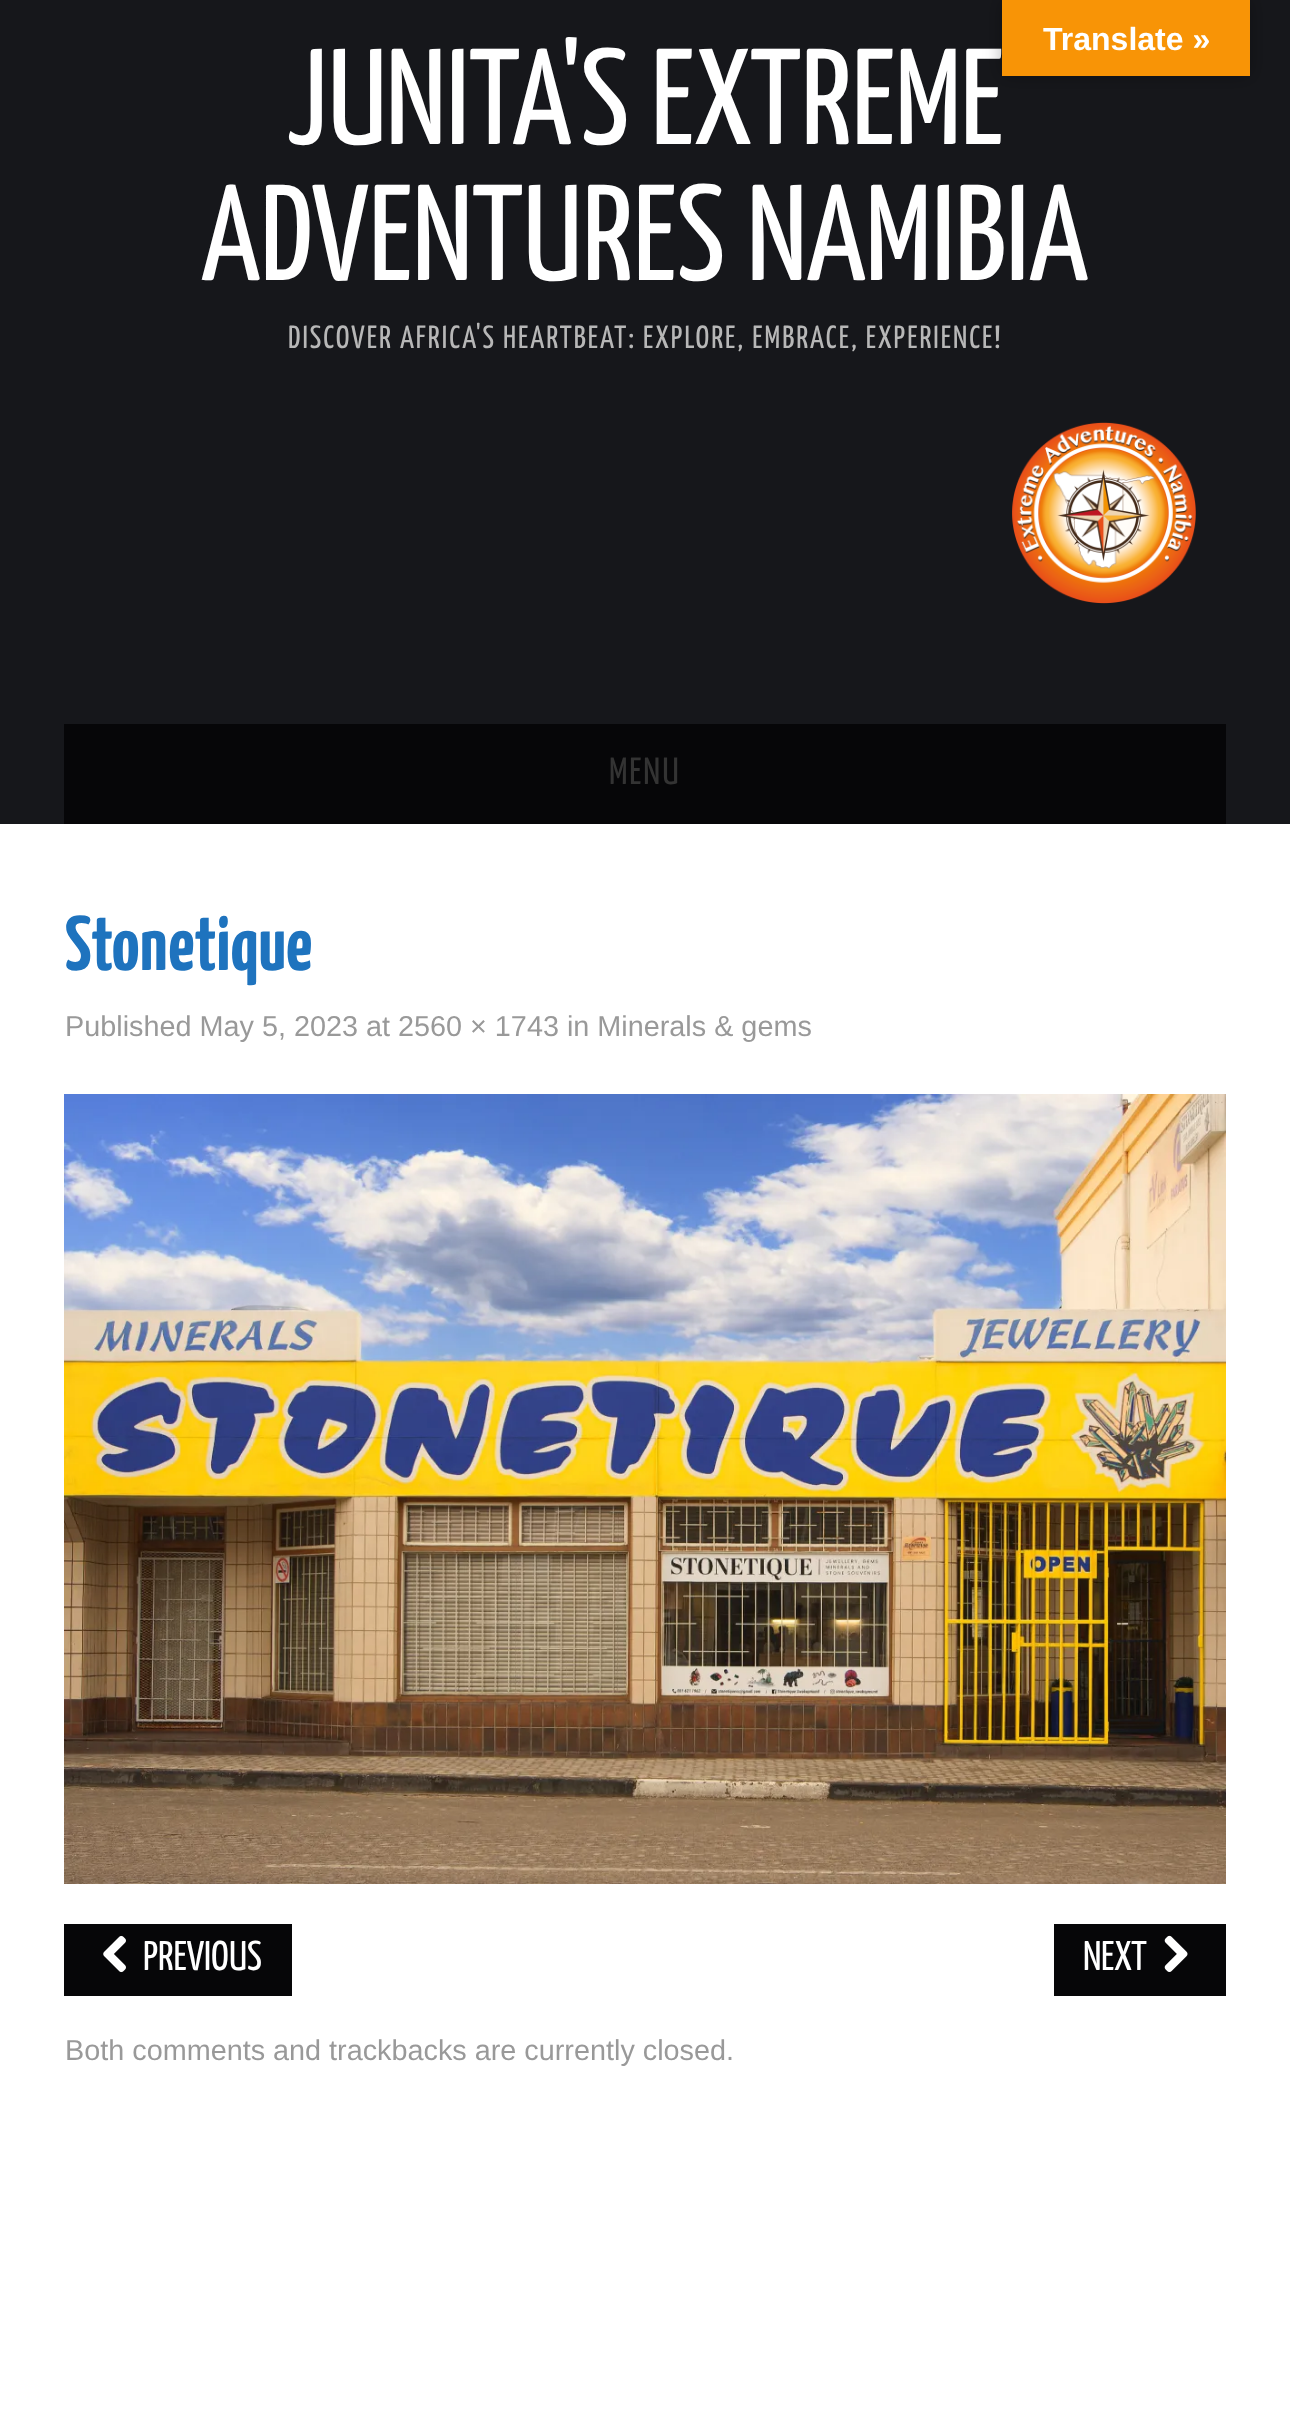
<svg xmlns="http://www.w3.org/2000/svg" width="1290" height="2413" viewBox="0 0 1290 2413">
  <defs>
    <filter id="blur1" x="-50%" y="-200%" width="200%" height="500%"><feGaussianBlur stdDeviation="9"/></filter>
  </defs>
  <rect width="100%" height="100%" fill="#ffffff"/>
  <rect x="0" y="0" width="1290" height="824" fill="#16171b"/>
  <text x="287" y="144" font-family="Yanone Kaffeesatz" font-size="136" fill="#ffffff">JUNITA'S EXTREME</text>
  <text x="201" y="280" font-family="Yanone Kaffeesatz" font-size="136" fill="#ffffff">ADVENTURES NAMIBIA</text>
  <text x="288" y="348" font-family="Yanone Kaffeesatz" font-size="32" letter-spacing="2" fill="#b7b7b7">DISCOVER AFRICA'S HEARTBEAT: EXPLORE, EMBRACE, EXPERIENCE!</text>
  <image x="1012" y="422" width="184" height="182" href="img1.png"/>
  <rect x="64" y="724" width="1162" height="100" fill="#060608"/>
  <text x="609" y="784" font-family="Yanone Kaffeesatz" font-size="38" letter-spacing="2" fill="#333333">MENU</text>
  <rect x="1002" y="0" width="248" height="76" fill="#000000" fill-opacity="0.3" filter="url(#blur1)"/>
  <rect x="1002" y="0" width="248" height="76" fill="#f89406"/>
  <text x="1043" y="50" font-family="Liberation Sans" font-size="32" font-weight="bold" fill="#ffffff">Translate »</text>
  <text x="65" y="970" font-family="Yanone Kaffeesatz" font-size="77" font-weight="bold" fill="#1e73be">Stonetique</text>
  <text x="65" y="1036" font-family="Liberation Sans" font-size="28.8" fill="#999999">Published May 5, 2023 at 2560 × 1743 in Minerals &amp; gems</text>
  <image x="64" y="1094" width="1162" height="790" href="img2.png"/>
  <rect x="64" y="1924" width="228" height="72" fill="#060608"/>
  <image x="103" y="1935" width="23" height="38" href="img3.png"/>
  <text x="143" y="1970" font-family="Yanone Kaffeesatz" font-size="41.5" fill="#ffffff">PREVIOUS</text>
  <rect x="1054" y="1924" width="172" height="72" fill="#060608"/>
  <text x="1083" y="1970" font-family="Yanone Kaffeesatz" font-size="41.5" fill="#ffffff">NEXT</text>
  <image x="1164" y="1935" width="24" height="37" href="img4.png"/>
  <text x="65" y="2060" font-family="Liberation Sans" font-size="28.8" fill="#999999">Both comments and trackbacks are currently closed.</text>
</svg>
